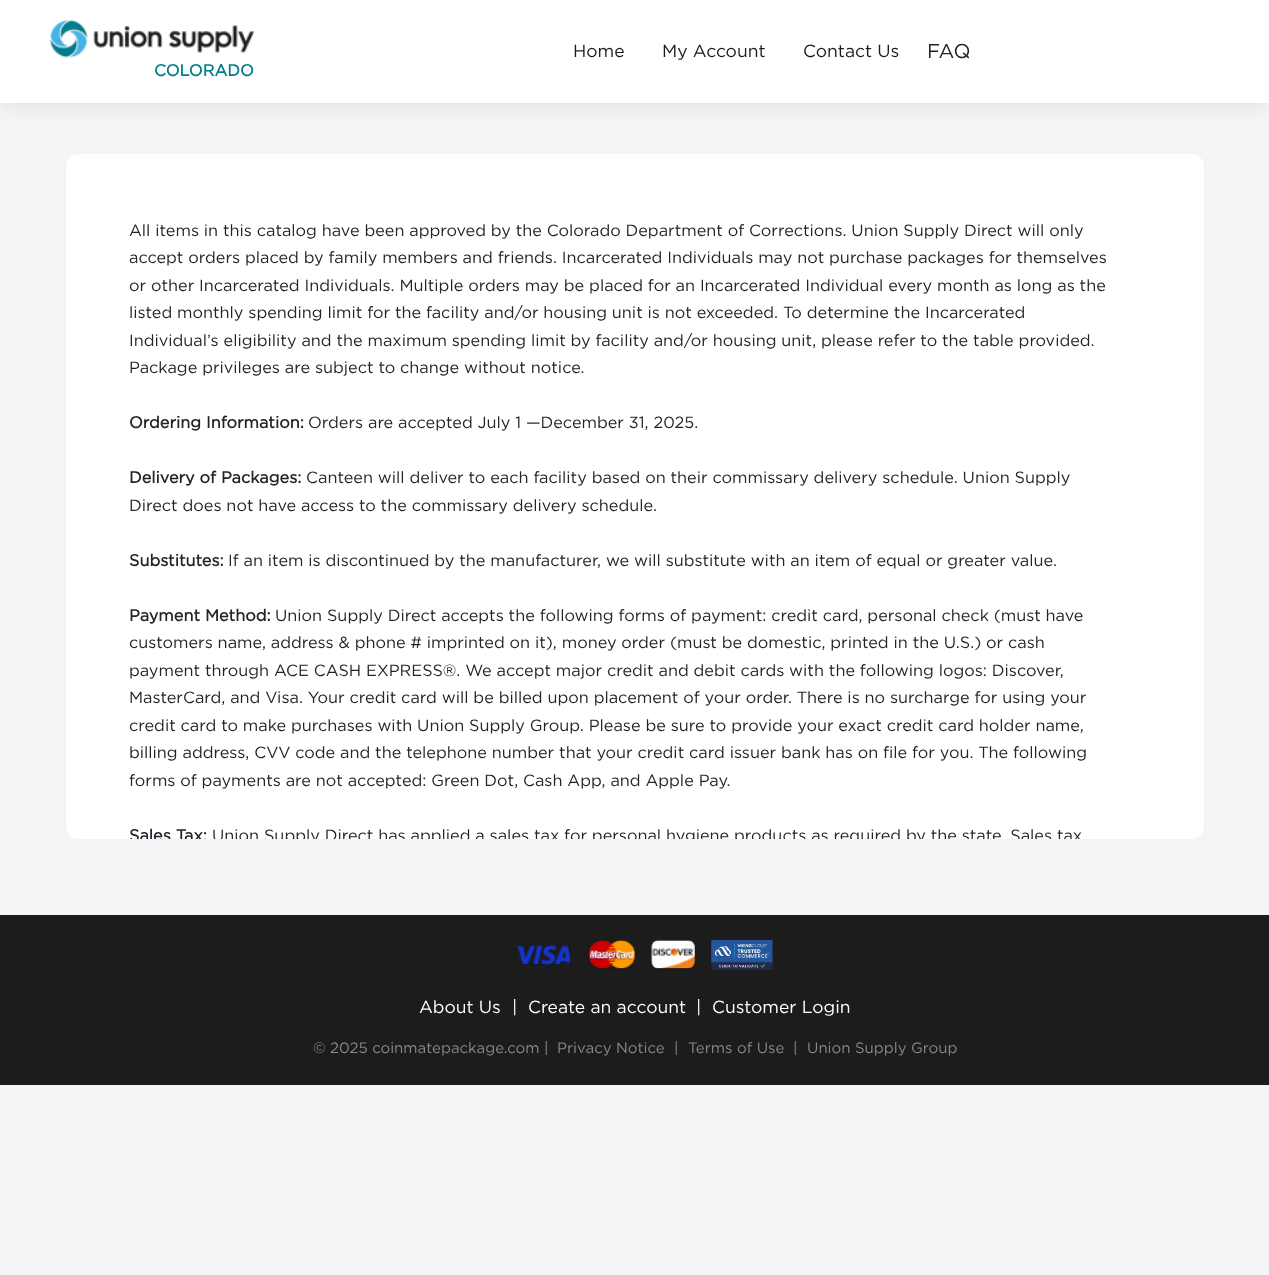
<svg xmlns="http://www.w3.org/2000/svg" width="1269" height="1275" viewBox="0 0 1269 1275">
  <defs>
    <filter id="blur1" x="-50%" y="-200%" width="200%" height="500%"><feGaussianBlur stdDeviation="12.5"/></filter>
    <clipPath id="clip1"><rect x="66" y="154" width="1138" height="685" rx="11"/></clipPath>
  </defs>
  <rect width="100%" height="100%" fill="#f5f5f7"/>
  <rect x="0" y="0" width="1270" height="103" fill="#000000" fill-opacity="0.1" filter="url(#blur1)"/>
  <rect x="0" y="0" width="1269" height="103" fill="#ffffff"/>
  <text x="573" y="57" font-family="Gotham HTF" font-size="17.5" fill="#181a20">Home</text>
  <text x="662" y="57" font-family="Gotham HTF" font-size="17.5" fill="#181a20">My Account</text>
  <text x="803" y="57" font-family="Gotham HTF" font-size="17.5" fill="#181a20">Contact Us</text>
  <text x="927" y="58" font-family="Gotham HTF" font-size="20" fill="#212529">FAQ</text>
  <image x="50" y="19" width="204" height="39" href="img1.png"/>
  <text x="154" y="76" font-family="Gotham HTF" font-size="16.25" font-weight="bold" fill="#007d8a">COLORADO</text>
  <rect x="65.5" y="153.5" width="1139" height="686" rx="12.5" fill="#ffffff" stroke="#f3f3f3"/>
  <text x="129" y="236" font-family="Gotham HTF" font-size="16.25" fill="#212529">All items in this catalog have been approved by the Colorado Department of Corrections. Union Supply Direct will only</text>
  <text x="129" y="263" font-family="Gotham HTF" font-size="16.25" fill="#212529">accept orders placed by family members and friends. Incarcerated Individuals may not purchase packages for themselves</text>
  <text x="129" y="291" font-family="Gotham HTF" font-size="16.25" fill="#212529">or other Incarcerated Individuals. Multiple orders may be placed for an Incarcerated Individual every month as long as the</text>
  <text x="129" y="318" font-family="Gotham HTF" font-size="16.25" fill="#212529">listed monthly spending limit for the facility and/or housing unit is not exceeded. To determine the Incarcerated</text>
  <text x="129" y="346" font-family="Gotham HTF" font-size="16.25" fill="#212529">Individual’s eligibility and the maximum spending limit by facility and/or housing unit, please refer to the table provided.</text>
  <text x="129" y="373" font-family="Gotham HTF" font-size="16.25" fill="#212529">Package privileges are subject to change without notice.</text>
  <text x="129" y="428" font-family="Gotham HTF" font-size="16.25" font-weight="bold" fill="#212529">Ordering Information:</text>
  <text x="308" y="428" font-family="Gotham HTF" font-size="16.25" fill="#212529">Orders are accepted July 1 —December 31, 2025.</text>
  <text x="129" y="483" font-family="Gotham HTF" font-size="16.25" font-weight="bold" fill="#212529">Delivery of Packages:</text>
  <text x="306" y="483" font-family="Gotham HTF" font-size="16.25" fill="#212529">Canteen will deliver to each facility based on their commissary delivery schedule. Union Supply</text>
  <text x="129" y="511" font-family="Gotham HTF" font-size="16.25" fill="#212529">Direct does not have access to the commissary delivery schedule.</text>
  <text x="129" y="566" font-family="Gotham HTF" font-size="16.25" font-weight="bold" fill="#212529">Substitutes:</text>
  <text x="228" y="566" font-family="Gotham HTF" font-size="16.25" fill="#212529">If an item is discontinued by the manufacturer, we will substitute with an item of equal or greater value.</text>
  <text x="129" y="621" font-family="Gotham HTF" font-size="16.25" font-weight="bold" fill="#212529">Payment Method:</text>
  <text x="275" y="621" font-family="Gotham HTF" font-size="16.25" fill="#212529">Union Supply Direct accepts the following forms of payment: credit card, personal check (must have</text>
  <text x="129" y="648" font-family="Gotham HTF" font-size="16.25" fill="#212529">customers name, address &amp; phone # imprinted on it), money order (must be domestic, printed in the U.S.) or cash</text>
  <text x="129" y="676" font-family="Gotham HTF" font-size="16.25" fill="#212529">payment through ACE CASH EXPRESS®. We accept major credit and debit cards with the following logos: Discover,</text>
  <text x="129" y="703" font-family="Gotham HTF" font-size="16.25" fill="#212529">MasterCard, and Visa. Your credit card will be billed upon placement of your order. There is no surcharge for using your</text>
  <text x="129" y="731" font-family="Gotham HTF" font-size="16.25" fill="#212529">credit card to make purchases with Union Supply Group. Please be sure to provide your exact credit card holder name,</text>
  <text x="129" y="758" font-family="Gotham HTF" font-size="16.25" fill="#212529">billing address, CVV code and the telephone number that your credit card issuer bank has on file for you. The following</text>
  <text x="129" y="786" font-family="Gotham HTF" font-size="16.25" fill="#212529">forms of payments are not accepted: Green Dot, Cash App, and Apple Pay.</text>
  <g clip-path="url(#clip1)">
    <text x="129" y="841" font-family="Gotham HTF" font-size="16.25" font-weight="bold" fill="#212529">Sales Tax:</text>
    <text x="212" y="841" font-family="Gotham HTF" font-size="16.25" fill="#212529">Union Supply Direct has applied a sales tax for personal hygiene products as required by the state. Sales tax</text>
  </g>
  <rect x="0" y="915" width="1269" height="170" fill="#1c1c1c"/>
  <image x="515" y="945" width="56" height="20" href="img2.png"/>
  <rect x="514.5" y="945.5" width="56" height="19" rx="7.5" fill="none" stroke="#000000" stroke-opacity="0.18"/>
  <image x="587" y="940" width="48" height="29" href="img3.png"/>
  <rect x="588.5" y="940.5" width="46" height="28" rx="7.5" fill="none" stroke="#000000" stroke-opacity="0.18"/>
  <image x="651" y="940" width="44" height="29" href="img4.png"/>
  <rect x="651.5" y="940.5" width="43" height="28" rx="7.5" fill="none" stroke="#000000" stroke-opacity="0.18"/>
  <image x="711" y="940" width="62" height="30" href="img5.png"/>
  <text x="419" y="1013" font-family="Gotham HTF" font-size="17.5" fill="#ffffff">About Us</text>
  <text x="512" y="1013" font-family="Gotham HTF" font-size="17.5" fill="#ffffff">|</text>
  <text x="528" y="1013" font-family="Gotham HTF" font-size="17.5" fill="#ffffff">Create an account</text>
  <text x="696" y="1013" font-family="Gotham HTF" font-size="17.5" fill="#ffffff">|</text>
  <text x="712" y="1013" font-family="Gotham HTF" font-size="17.5" fill="#ffffff">Customer Login</text>
  <text x="313" y="1053" font-family="Gotham HTF" font-size="15" fill="#888888">© 2025 coinmatepackage.com |</text>
  <text x="557" y="1053" font-family="Gotham HTF" font-size="15" fill="#888888">Privacy Notice</text>
  <text x="674" y="1053" font-family="Gotham HTF" font-size="15" fill="#888888">|</text>
  <text x="688" y="1053" font-family="Gotham HTF" font-size="15" fill="#888888">Terms of Use</text>
  <text x="793" y="1053" font-family="Gotham HTF" font-size="15" fill="#888888">|</text>
  <text x="807" y="1053" font-family="Gotham HTF" font-size="15" fill="#888888">Union Supply Group</text>
</svg>
